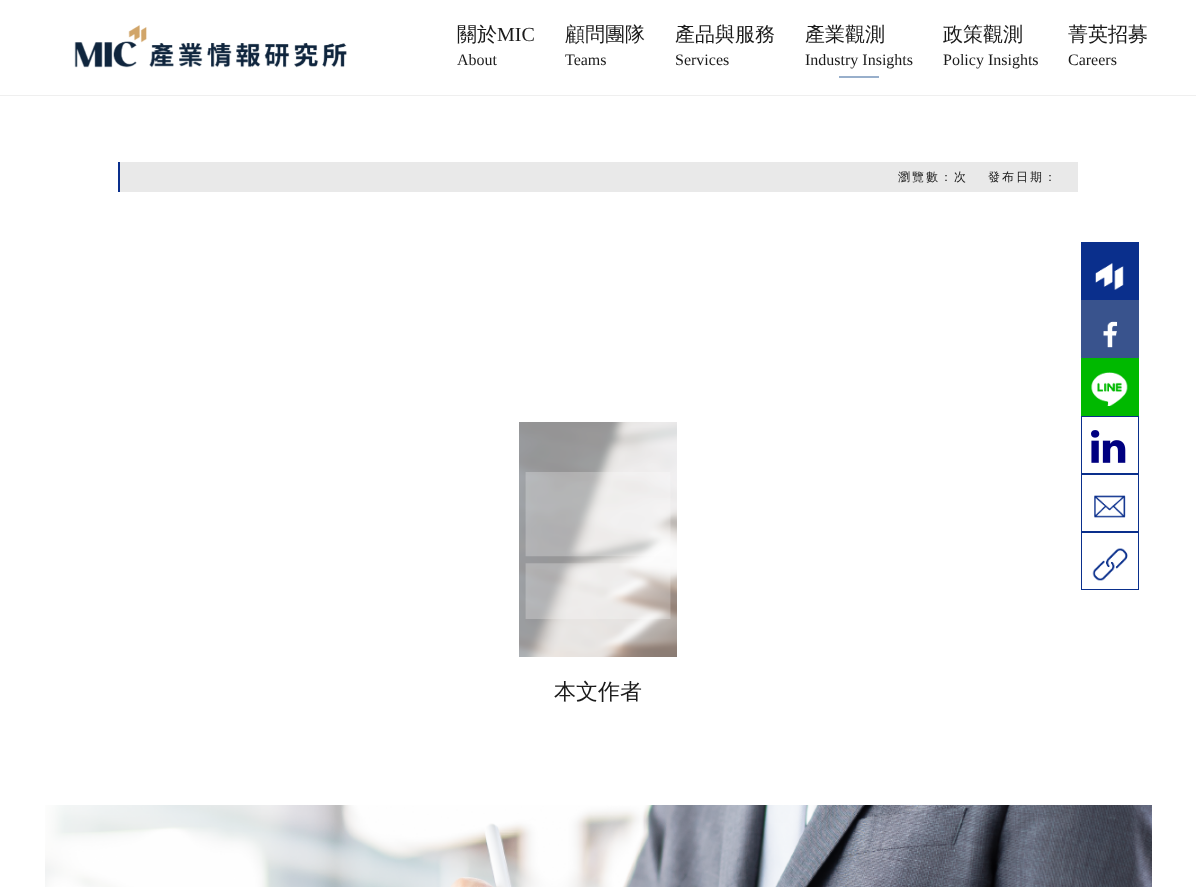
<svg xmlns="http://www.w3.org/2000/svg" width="1196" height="887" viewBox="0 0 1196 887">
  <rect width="100%" height="100%" fill="#ffffff"/>
  <rect x="0" y="95" width="1196" height="1" fill="#efefef"/>
  <image x="74" y="25" width="273" height="43" href="img1.png"/>
  <text x="457" y="41" font-family="WenQuanYi Zen Hei" font-size="20" font-weight="500" fill="#1a1a1a">關於</text>
  <text x="497" y="41" font-family="Liberation Serif" font-size="20" fill="#1a1a1a">MIC</text>
  <text x="457" y="65" font-family="Liberation Serif" font-size="16" fill="#1a1a1a">About</text>
  <text x="565" y="41" font-family="WenQuanYi Zen Hei" font-size="20" font-weight="500" fill="#1a1a1a">顧問團隊</text>
  <text x="565" y="65" font-family="Liberation Serif" font-size="16" fill="#1a1a1a">Teams</text>
  <text x="675" y="41" font-family="WenQuanYi Zen Hei" font-size="20" font-weight="500" fill="#1a1a1a">產品與服務</text>
  <text x="675" y="65" font-family="Liberation Serif" font-size="16" fill="#1a1a1a">Services</text>
  <text x="805" y="41" font-family="WenQuanYi Zen Hei" font-size="20" font-weight="500" fill="#1a1a1a">產業觀測</text>
  <text x="805" y="65" font-family="Liberation Serif" font-size="16" fill="#1a1a1a">Industry Insights</text>
  <rect x="839" y="76" width="40" height="2" fill="#98afcb"/>
  <text x="943" y="41" font-family="WenQuanYi Zen Hei" font-size="20" font-weight="500" fill="#1a1a1a">政策觀測</text>
  <text x="943" y="65" font-family="Liberation Serif" font-size="16" fill="#1a1a1a">Policy Insights</text>
  <text x="1068" y="41" font-family="WenQuanYi Zen Hei" font-size="20" font-weight="500" fill="#1a1a1a">菁英招募</text>
  <text x="1068" y="65" font-family="Liberation Serif" font-size="16" fill="#1a1a1a">Careers</text>
  <rect x="120" y="162" width="958" height="30" fill="#e9e9e9"/>
  <rect x="118" y="162" width="2" height="30" fill="#0a2f8c"/>
  <text x="898" y="181" font-family="WenQuanYi Zen Hei" font-size="12" font-weight="500" letter-spacing="2" fill="#1a1a1a">瀏覽數：次</text>
  <text x="988" y="181" font-family="WenQuanYi Zen Hei" font-size="12" font-weight="500" letter-spacing="2" fill="#1a1a1a">發布日期：</text>
  <rect x="1081" y="242" width="58" height="58" fill="#0a2f8c"/>
  <image x="1095" y="263" width="29" height="27" href="img2.png"/>
  <rect x="1081" y="300" width="58" height="58" fill="#39538d"/>
  <image x="1103" y="321" width="15" height="27" href="img3.png"/>
  <rect x="1081" y="358" width="58" height="58" fill="#00b900"/>
  <image x="1091" y="372" width="37" height="34" href="img4.png"/>
  <rect x="1081.5" y="416.5" width="57" height="57" fill="none" stroke="#0a2f8c"/>
  <image x="1091" y="430" width="35" height="33" href="img5.png"/>
  <rect x="1081.5" y="474.5" width="57" height="57" fill="none" stroke="#0a2f8c"/>
  <image x="1094" y="495" width="32" height="23" href="img6.png"/>
  <rect x="1081.5" y="532.5" width="57" height="57" fill="none" stroke="#0a2f8c"/>
  <image x="1092" y="548" width="36" height="33" href="img7.png"/>
  <image x="519" y="422" width="158" height="235" href="img8.png"/>
  <image x="525" y="472" width="146" height="147" href="img9.png"/>
  <text x="554" y="699" font-family="WenQuanYi Zen Hei" font-size="22" font-weight="500" fill="#1a1a1a">本文作者</text>
  <image x="45" y="805" width="1107" height="82" href="img10.png"/>
</svg>
